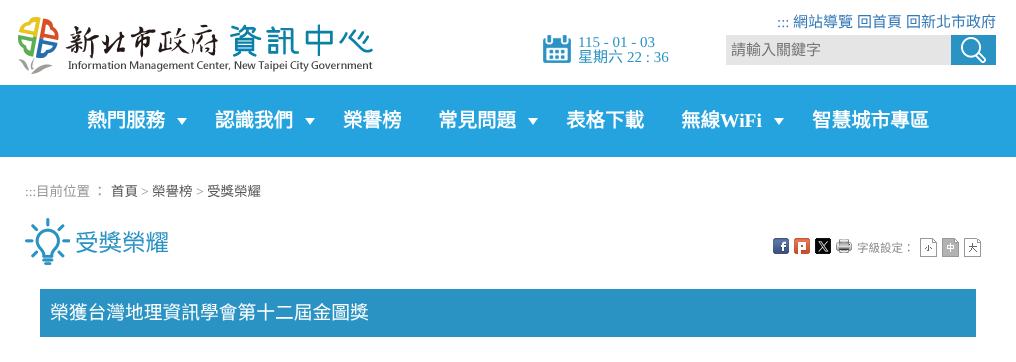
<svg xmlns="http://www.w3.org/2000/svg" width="1016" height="362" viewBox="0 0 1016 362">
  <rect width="100%" height="100%" fill="#ffffff"/>
  <rect x="0" y="85" width="1016" height="72" fill="#24a3de"/>
  <text x="777" y="27" font-family="Liberation Serif" font-size="15" fill="#337ab7">:::</text>
  <text x="793" y="27" font-family="Noto Sans CJK TC" font-size="15" fill="#337ab7">網站導覽</text>
  <text x="857" y="27" font-family="Noto Sans CJK TC" font-size="15" fill="#337ab7">回首頁</text>
  <text x="906" y="27" font-family="Noto Sans CJK TC" font-size="15" fill="#337ab7">回新北市政府</text>
  <image x="543" y="35" width="28" height="28" href="img1.png"/>
  <text x="578" y="47" font-family="Liberation Serif" font-size="15" fill="#2b93c3">115 - 01 - 03</text>
  <text x="578" y="62" font-family="Noto Sans CJK TC" font-size="15" fill="#2b93c3">星期六</text>
  <text x="627" y="62" font-family="Liberation Serif" font-size="15" fill="#2b93c3">22 : 36</text>
  <rect x="726" y="35" width="225" height="30" fill="#e5e5e5"/>
  <text x="731" y="55" font-family="Noto Sans CJK TC" font-size="15" fill="#757575">請輸入關鍵字</text>
  <rect x="951" y="35" width="45" height="30" fill="#2b93c3"/>
  <image x="961" y="37" width="25" height="26" href="img2.png"/>
  <text x="87" y="127" font-family="Noto Sans CJK TC" font-size="19.5" font-weight="bold" fill="#ffffff">熱門服務</text>
  <path d="M177 118H187L182 125Z" fill="#ffffff"/>
  <text x="215" y="127" font-family="Noto Sans CJK TC" font-size="19.5" font-weight="bold" fill="#ffffff">認識我們</text>
  <path d="M305 118H315L310 125Z" fill="#ffffff"/>
  <text x="343" y="127" font-family="Noto Sans CJK TC" font-size="19.5" font-weight="bold" fill="#ffffff">榮譽榜</text>
  <text x="438" y="127" font-family="Noto Sans CJK TC" font-size="19.5" font-weight="bold" fill="#ffffff">常見問題</text>
  <path d="M528 118H538L533 125Z" fill="#ffffff"/>
  <text x="566" y="127" font-family="Noto Sans CJK TC" font-size="19.5" font-weight="bold" fill="#ffffff">表格下載</text>
  <text x="681" y="127" font-family="Noto Sans CJK TC" font-size="19.5" font-weight="bold" fill="#ffffff">無線</text>
  <text x="720" y="127" font-family="Liberation Serif" font-size="19.5" font-weight="bold" fill="#ffffff">WiFi</text>
  <path d="M774 118H784L779 125Z" fill="#ffffff"/>
  <text x="812" y="127" font-family="Noto Sans CJK TC" font-size="19.5" font-weight="bold" fill="#ffffff">智慧城市專區</text>
  <image x="18" y="17" width="355" height="57" href="img3.png"/>
  <text x="25" y="196" font-family="Liberation Serif" font-size="13.5" fill="#979797">:::</text>
  <text x="36" y="196" font-family="Noto Sans CJK TC" font-size="13.5" fill="#979797">目前位置 ：</text>
  <text x="111" y="196" font-family="Noto Sans CJK TC" font-size="13.5" fill="#565656">首頁</text>
  <text x="141" y="196" font-family="Liberation Serif" font-size="13.5" fill="#979797">&gt;</text>
  <text x="152" y="196" font-family="Noto Sans CJK TC" font-size="13.5" fill="#565656">榮譽榜</text>
  <text x="196" y="196" font-family="Liberation Serif" font-size="13.5" fill="#979797">&gt;</text>
  <text x="207" y="196" font-family="Noto Sans CJK TC" font-size="13.5" fill="#565656">受獎榮耀</text>
  <image x="25" y="218" width="45" height="47" href="img4.png"/>
  <text x="75" y="251" font-family="Noto Sans CJK TC" font-size="23.5" fill="#2b93c3">受獎榮耀</text>
  <image x="773" y="238" width="16" height="16" href="img5.png"/>
  <image x="794" y="238" width="16" height="16" href="img6.png"/>
  <image x="815" y="238" width="16" height="16" href="img7.png"/>
  <image x="836" y="239" width="16" height="14" href="img8.png"/>
  <text x="857" y="252" font-family="Noto Sans CJK TC" font-size="11.5" fill="#8c8b8b">字級設定：</text>
  <image x="920" y="238" width="17" height="19" href="img9.png"/>
  <image x="942" y="238" width="17" height="19" href="img10.png"/>
  <image x="964" y="238" width="17" height="19" href="img11.png"/>
  <rect x="40" y="289" width="936" height="48" fill="#2b93c3"/>
  <text x="50" y="319" font-family="Noto Sans CJK TC" font-size="18.75" fill="#ffffff">榮獲台灣地理資訊學會第十二屆金圖獎</text>
</svg>
